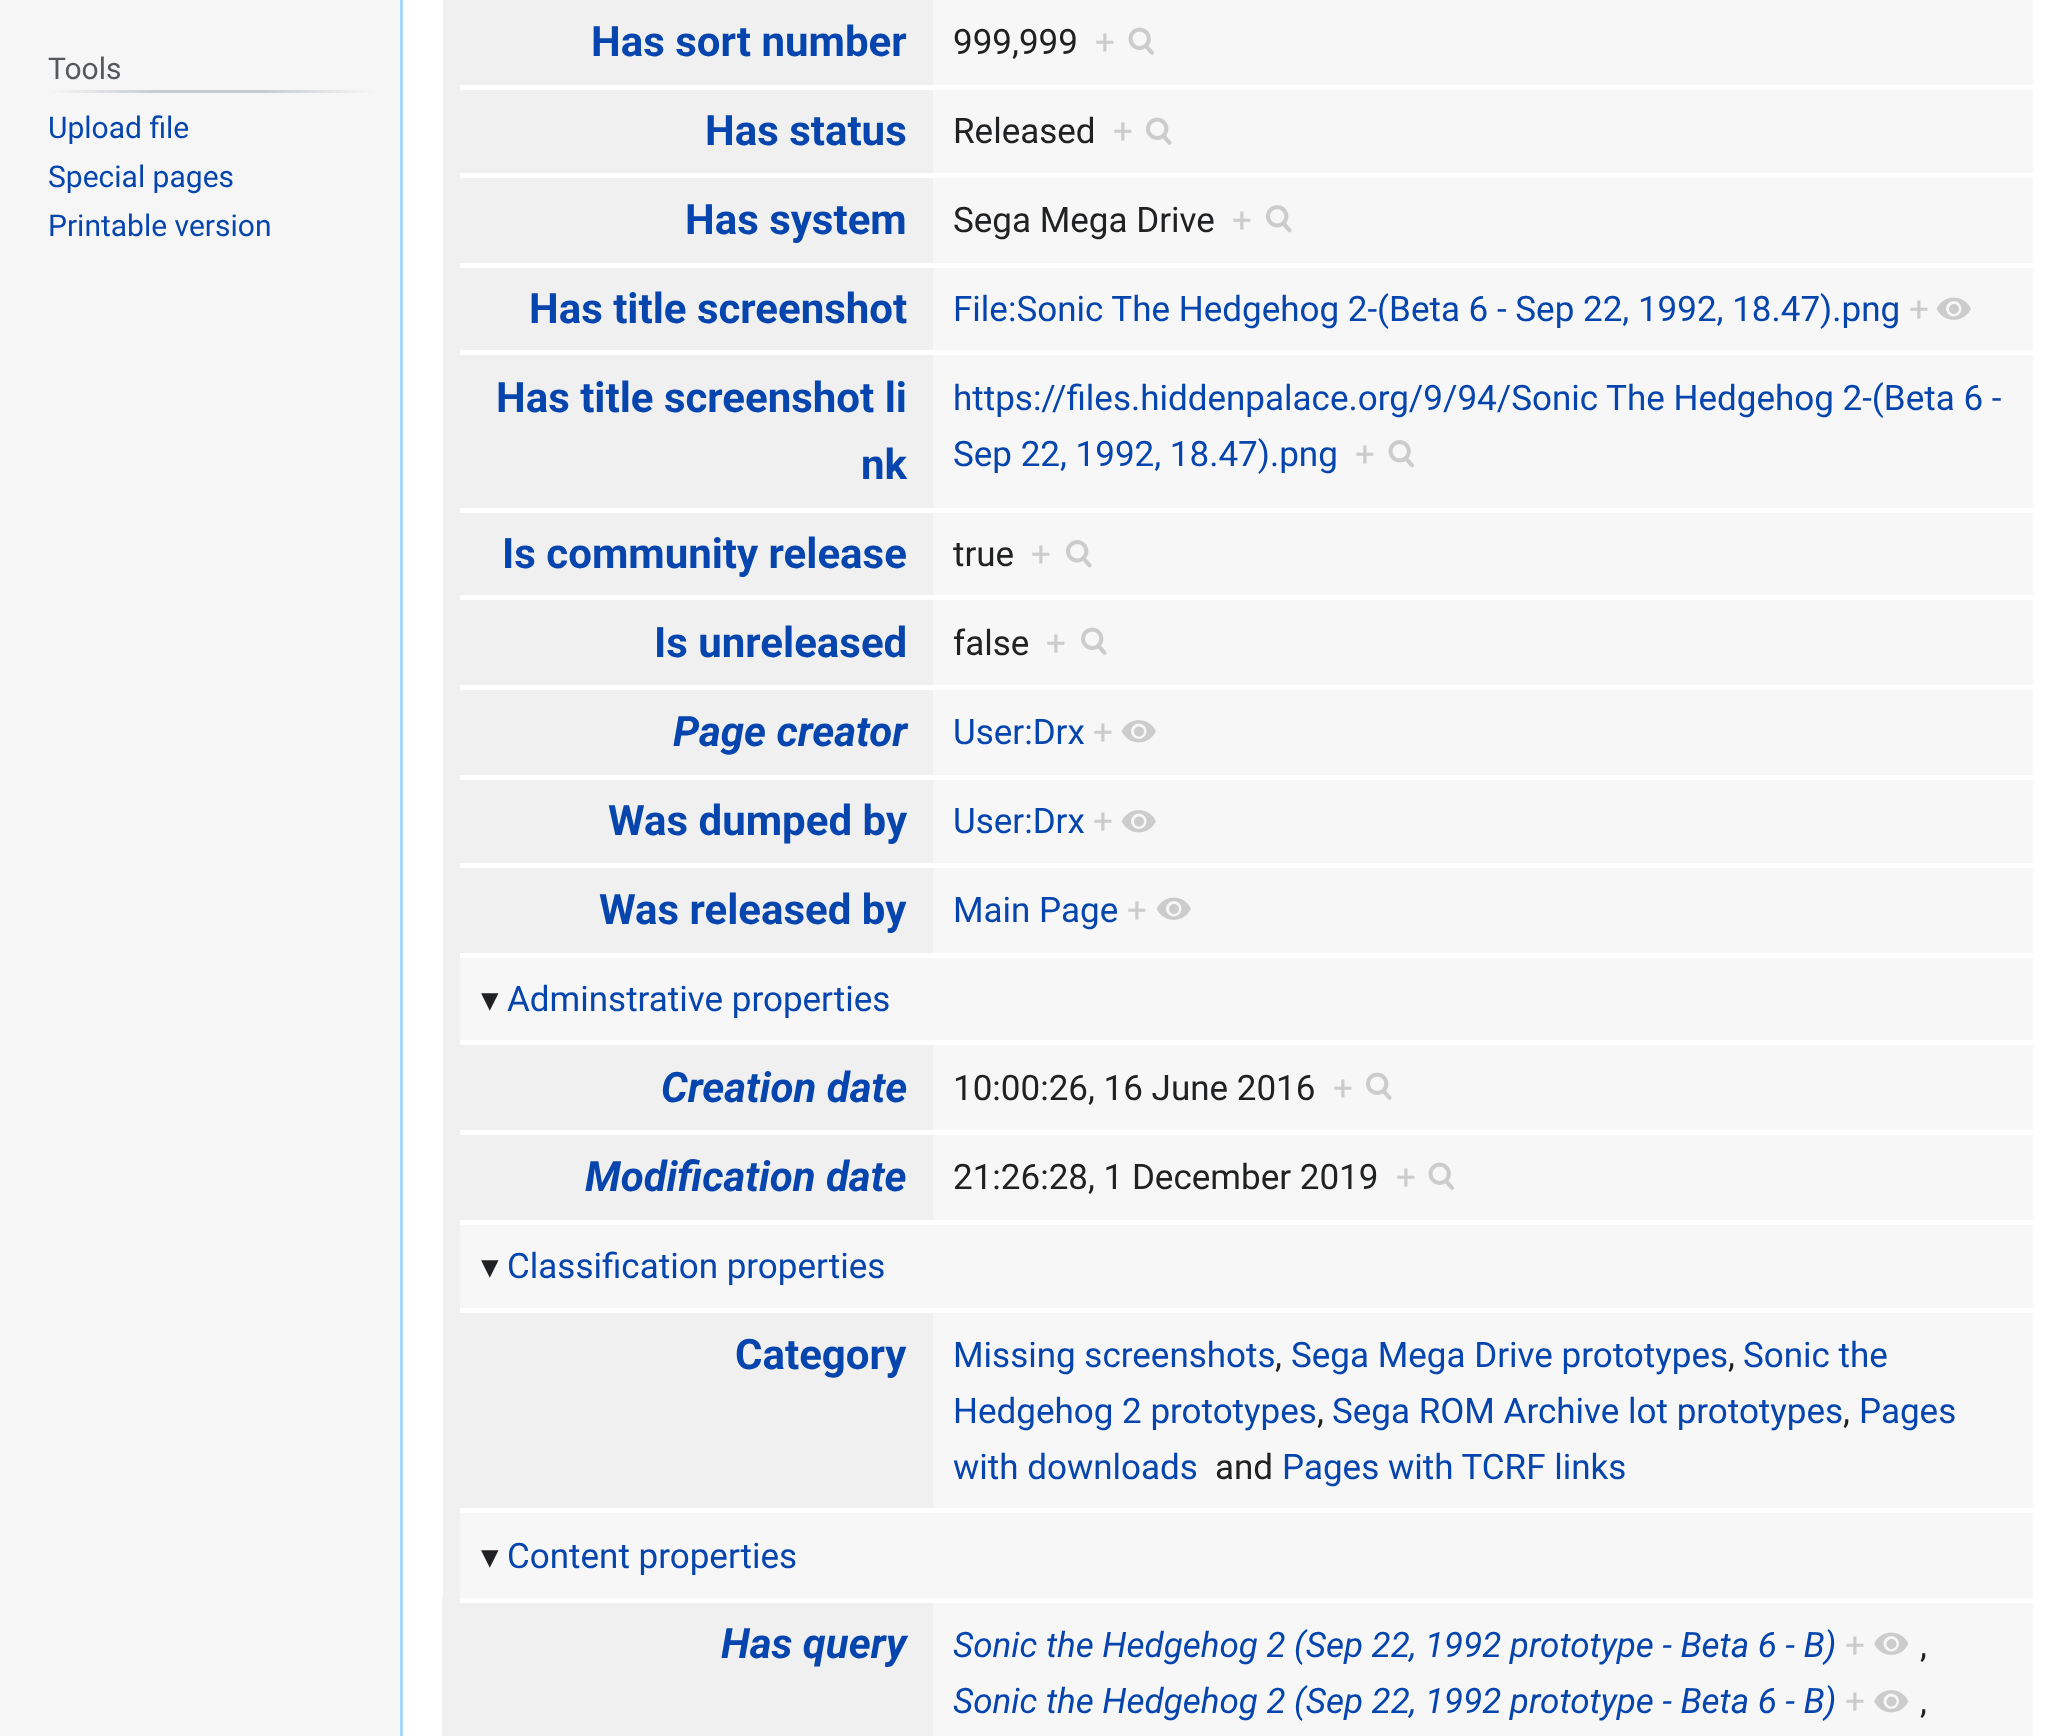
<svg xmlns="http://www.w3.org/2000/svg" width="2072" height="1736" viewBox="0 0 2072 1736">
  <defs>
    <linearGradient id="g1" gradientUnits="userSpaceOnUse" x1="48" y1="91" x2="375" y2="91"><stop offset="0" stop-color="#f6f6f6"/><stop offset="0.33" stop-color="#c8ccd1"/><stop offset="0.66" stop-color="#c8ccd1"/><stop offset="1" stop-color="#f6f6f6"/></linearGradient>
  </defs>
  <rect width="100%" height="100%" fill="#f6f6f6"/>
  <rect x="48" y="90" width="327" height="3" fill="url(#g1)"/>
  <text x="48" y="79" font-family="Roboto" font-size="30" fill="#54595d">Tools</text>
  <text x="48" y="138" font-family="Roboto" font-size="30" fill="#0645ad">Upload file</text>
  <text x="48" y="187" font-family="Roboto" font-size="30" fill="#0645ad">Special pages</text>
  <text x="48" y="236" font-family="Roboto" font-size="30" fill="#0645ad">Printable version</text>
  <rect x="403" y="0" width="1669" height="1736" fill="#ffffff"/>
  <rect x="400" y="0" width="3" height="1736" fill="#a7d7f9"/>
  <rect x="443" y="0" width="17" height="1598" fill="#f0f0f0"/>
  <rect x="460" y="0" width="473" height="85" fill="#f0f0f0"/>
  <text x="591" y="56" font-family="Roboto" font-size="42" font-weight="bold" fill="#0645ad">Has sort number</text>
  <rect x="933" y="0" width="1100" height="85" fill="#f7f7f7"/>
  <text x="953" y="54" font-family="Roboto" font-size="35" fill="#202122">999,999</text>
  <text x="1095" y="54" font-family="Roboto" font-size="35" fill="#cccccc">+</text>
  <image x="1128" y="27" width="26" height="28" href="img1.png"/>
  <rect x="460" y="90" width="473" height="83" fill="#f0f0f0"/>
  <text x="705" y="145" font-family="Roboto" font-size="42" font-weight="bold" fill="#0645ad">Has status</text>
  <rect x="933" y="90" width="1100" height="83" fill="#f7f7f7"/>
  <text x="953" y="143" font-family="Roboto" font-size="35" fill="#202122">Released</text>
  <text x="1113" y="143" font-family="Roboto" font-size="35" fill="#cccccc">+</text>
  <image x="1146" y="117" width="26" height="28" href="img2.png"/>
  <rect x="460" y="178" width="473" height="85" fill="#f0f0f0"/>
  <text x="685" y="234" font-family="Roboto" font-size="42" font-weight="bold" fill="#0645ad">Has system</text>
  <rect x="933" y="178" width="1100" height="85" fill="#f7f7f7"/>
  <text x="953" y="232" font-family="Roboto" font-size="35" fill="#202122">Sega Mega Drive</text>
  <text x="1232" y="232" font-family="Roboto" font-size="35" fill="#cccccc">+</text>
  <image x="1266" y="205" width="26" height="28" href="img3.png"/>
  <rect x="460" y="268" width="473" height="82" fill="#f0f0f0"/>
  <text x="529" y="323" font-family="Roboto" font-size="42" font-weight="bold" fill="#0645ad">Has title screenshot</text>
  <rect x="933" y="268" width="1100" height="82" fill="#f7f7f7"/>
  <text x="953" y="321" font-family="Roboto" font-size="35" fill="#0645ad">File:Sonic The Hedgehog 2-(Beta 6 - Sep 22, 1992, 18.47).png</text>
  <text x="1909" y="321" font-family="Roboto" font-size="35" fill="#cccccc">+</text>
  <image x="1936" y="297" width="35" height="23" href="img4.png"/>
  <rect x="460" y="355" width="473" height="153" fill="#f0f0f0"/>
  <text x="496" y="412" font-family="Roboto" font-size="42" font-weight="bold" fill="#0645ad">Has title screenshot li</text>
  <text x="861" y="479" font-family="Roboto" font-size="42" font-weight="bold" fill="#0645ad">nk</text>
  <rect x="933" y="355" width="1100" height="153" fill="#f7f7f7"/>
  <text x="953" y="410" font-family="Roboto" font-size="35" fill="#0645ad">https://files.hiddenpalace.org/9/94/Sonic The Hedgehog 2-(Beta 6 -</text>
  <text x="953" y="466" font-family="Roboto" font-size="35" fill="#0645ad">Sep 22, 1992, 18.47).png</text>
  <text x="1355" y="466" font-family="Roboto" font-size="35" fill="#cccccc">+</text>
  <image x="1388" y="440" width="26" height="28" href="img5.png"/>
  <rect x="460" y="513" width="473" height="82" fill="#f0f0f0"/>
  <text x="502" y="568" font-family="Roboto" font-size="42" font-weight="bold" fill="#0645ad">Is community release</text>
  <rect x="933" y="513" width="1100" height="82" fill="#f7f7f7"/>
  <text x="953" y="566" font-family="Roboto" font-size="35" fill="#202122">true</text>
  <text x="1031" y="566" font-family="Roboto" font-size="35" fill="#cccccc">+</text>
  <image x="1066" y="540" width="26" height="28" href="img3.png"/>
  <rect x="460" y="600" width="473" height="85" fill="#f0f0f0"/>
  <text x="654" y="657" font-family="Roboto" font-size="42" font-weight="bold" fill="#0645ad">Is unreleased</text>
  <rect x="933" y="600" width="1100" height="85" fill="#f7f7f7"/>
  <text x="953" y="655" font-family="Roboto" font-size="35" fill="#202122">false</text>
  <text x="1046" y="655" font-family="Roboto" font-size="35" fill="#cccccc">+</text>
  <image x="1081" y="627" width="26" height="28" href="img2.png"/>
  <rect x="460" y="690" width="473" height="85" fill="#f0f0f0"/>
  <text x="673" y="746" font-family="Roboto" font-size="42" font-weight="bold" font-style="italic" fill="#0645ad">Page creator</text>
  <rect x="933" y="690" width="1100" height="85" fill="#f7f7f7"/>
  <text x="953" y="744" font-family="Roboto" font-size="35" fill="#0645ad">User:Drx</text>
  <text x="1093" y="744" font-family="Roboto" font-size="35" fill="#cccccc">+</text>
  <image x="1121" y="720" width="35" height="23" href="img6.png"/>
  <rect x="460" y="780" width="473" height="83" fill="#f0f0f0"/>
  <text x="608" y="835" font-family="Roboto" font-size="42" font-weight="bold" fill="#0645ad">Was dumped by</text>
  <rect x="933" y="780" width="1100" height="83" fill="#f7f7f7"/>
  <text x="953" y="833" font-family="Roboto" font-size="35" fill="#0645ad">User:Drx</text>
  <text x="1093" y="833" font-family="Roboto" font-size="35" fill="#cccccc">+</text>
  <image x="1121" y="810" width="35" height="23" href="img6.png"/>
  <rect x="460" y="868" width="473" height="85" fill="#f0f0f0"/>
  <text x="599" y="924" font-family="Roboto" font-size="42" font-weight="bold" fill="#0645ad">Was released by</text>
  <rect x="933" y="868" width="1100" height="85" fill="#f7f7f7"/>
  <text x="953" y="922" font-family="Roboto" font-size="35" fill="#0645ad">Main Page</text>
  <text x="1127" y="922" font-family="Roboto" font-size="35" fill="#cccccc">+</text>
  <image x="1156" y="897" width="35" height="23" href="img4.png"/>
  <rect x="460" y="958" width="1573" height="82" fill="#f7f7f7"/>
  <text x="481" y="1011" font-family="DejaVu Sans" font-size="35" fill="#202122">▾</text>
  <text x="507" y="1011" font-family="Roboto" font-size="35" fill="#0645ad">Adminstrative properties</text>
  <rect x="460" y="1045" width="473" height="85" fill="#f0f0f0"/>
  <text x="661" y="1102" font-family="Roboto" font-size="42" font-weight="bold" font-style="italic" fill="#0645ad">Creation date</text>
  <rect x="933" y="1045" width="1100" height="85" fill="#f7f7f7"/>
  <text x="953" y="1100" font-family="Roboto" font-size="35" fill="#202122">10:00:26, 16 June 2016</text>
  <text x="1333" y="1100" font-family="Roboto" font-size="35" fill="#cccccc">+</text>
  <image x="1366" y="1072" width="26" height="28" href="img2.png"/>
  <rect x="460" y="1135" width="473" height="85" fill="#f0f0f0"/>
  <text x="585" y="1191" font-family="Roboto" font-size="42" font-weight="bold" font-style="italic" fill="#0645ad">Modification date</text>
  <rect x="933" y="1135" width="1100" height="85" fill="#f7f7f7"/>
  <text x="953" y="1189" font-family="Roboto" font-size="35" fill="#202122">21:26:28, 1 December 2019</text>
  <text x="1396" y="1189" font-family="Roboto" font-size="35" fill="#cccccc">+</text>
  <image x="1428" y="1162" width="26" height="28" href="img1.png"/>
  <rect x="460" y="1225" width="1573" height="83" fill="#f7f7f7"/>
  <text x="481" y="1278" font-family="DejaVu Sans" font-size="35" fill="#202122">▾</text>
  <text x="507" y="1278" font-family="Roboto" font-size="35" fill="#0645ad">Classification properties</text>
  <rect x="460" y="1313" width="473" height="195" fill="#f0f0f0"/>
  <text x="735" y="1369" font-family="Roboto" font-size="42" font-weight="bold" fill="#0645ad">Category</text>
  <rect x="933" y="1313" width="1100" height="195" fill="#f7f7f7"/>
  <text x="953" y="1367" font-family="Roboto" font-size="35" fill="#0645ad">Missing screenshots</text>
  <text x="1275" y="1367" font-family="Roboto" font-size="35" fill="#202122">,</text>
  <text x="1291" y="1367" font-family="Roboto" font-size="35" fill="#0645ad">Sega Mega Drive prototypes</text>
  <text x="1728" y="1367" font-family="Roboto" font-size="35" fill="#202122">,</text>
  <text x="1743" y="1367" font-family="Roboto" font-size="35" fill="#0645ad">Sonic the</text>
  <text x="953" y="1423" font-family="Roboto" font-size="35" fill="#0645ad">Hedgehog 2 prototypes</text>
  <text x="1317" y="1423" font-family="Roboto" font-size="35" fill="#202122">,</text>
  <text x="1332" y="1423" font-family="Roboto" font-size="35" fill="#0645ad">Sega ROM Archive lot prototypes</text>
  <text x="1843" y="1423" font-family="Roboto" font-size="35" fill="#202122">,</text>
  <text x="1859" y="1423" font-family="Roboto" font-size="35" fill="#0645ad">Pages</text>
  <text x="953" y="1479" font-family="Roboto" font-size="35" fill="#0645ad">with downloads</text>
  <text x="1215" y="1479" font-family="Roboto" font-size="35" fill="#202122">and</text>
  <text x="1282" y="1479" font-family="Roboto" font-size="35" fill="#0645ad">Pages with TCRF links</text>
  <rect x="460" y="1513" width="1573" height="85" fill="#f7f7f7"/>
  <text x="481" y="1568" font-family="DejaVu Sans" font-size="35" fill="#202122">▾</text>
  <text x="507" y="1568" font-family="Roboto" font-size="35" fill="#0645ad">Content properties</text>
  <path d="M442 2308V1598H460V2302Z" fill="#f0f0f0"/>
  <rect x="460" y="1603" width="473" height="133" fill="#f0f0f0"/>
  <text x="721" y="1658" font-family="Roboto" font-size="42" font-weight="bold" font-style="italic" fill="#0645ad">Has query</text>
  <rect x="933" y="1603" width="1100" height="133" fill="#f7f7f7"/>
  <text x="953" y="1657" font-family="Roboto" font-size="35" font-style="italic" fill="#0645ad">Sonic the Hedgehog 2 (Sep 22, 1992 prototype - Beta 6 - B)</text>
  <text x="1845" y="1657" font-family="Roboto" font-size="35" fill="#cccccc">+</text>
  <image x="1874" y="1632" width="35" height="23" href="img7.png"/>
  <text x="1920" y="1657" font-family="Roboto" font-size="35" fill="#202122">,</text>
  <text x="953" y="1713" font-family="Roboto" font-size="35" font-style="italic" fill="#0645ad">Sonic the Hedgehog 2 (Sep 22, 1992 prototype - Beta 6 - B)</text>
  <text x="1845" y="1713" font-family="Roboto" font-size="35" fill="#cccccc">+</text>
  <image x="1874" y="1690" width="35" height="23" href="img8.png"/>
  <text x="1920" y="1713" font-family="Roboto" font-size="35" fill="#202122">,</text>
</svg>
